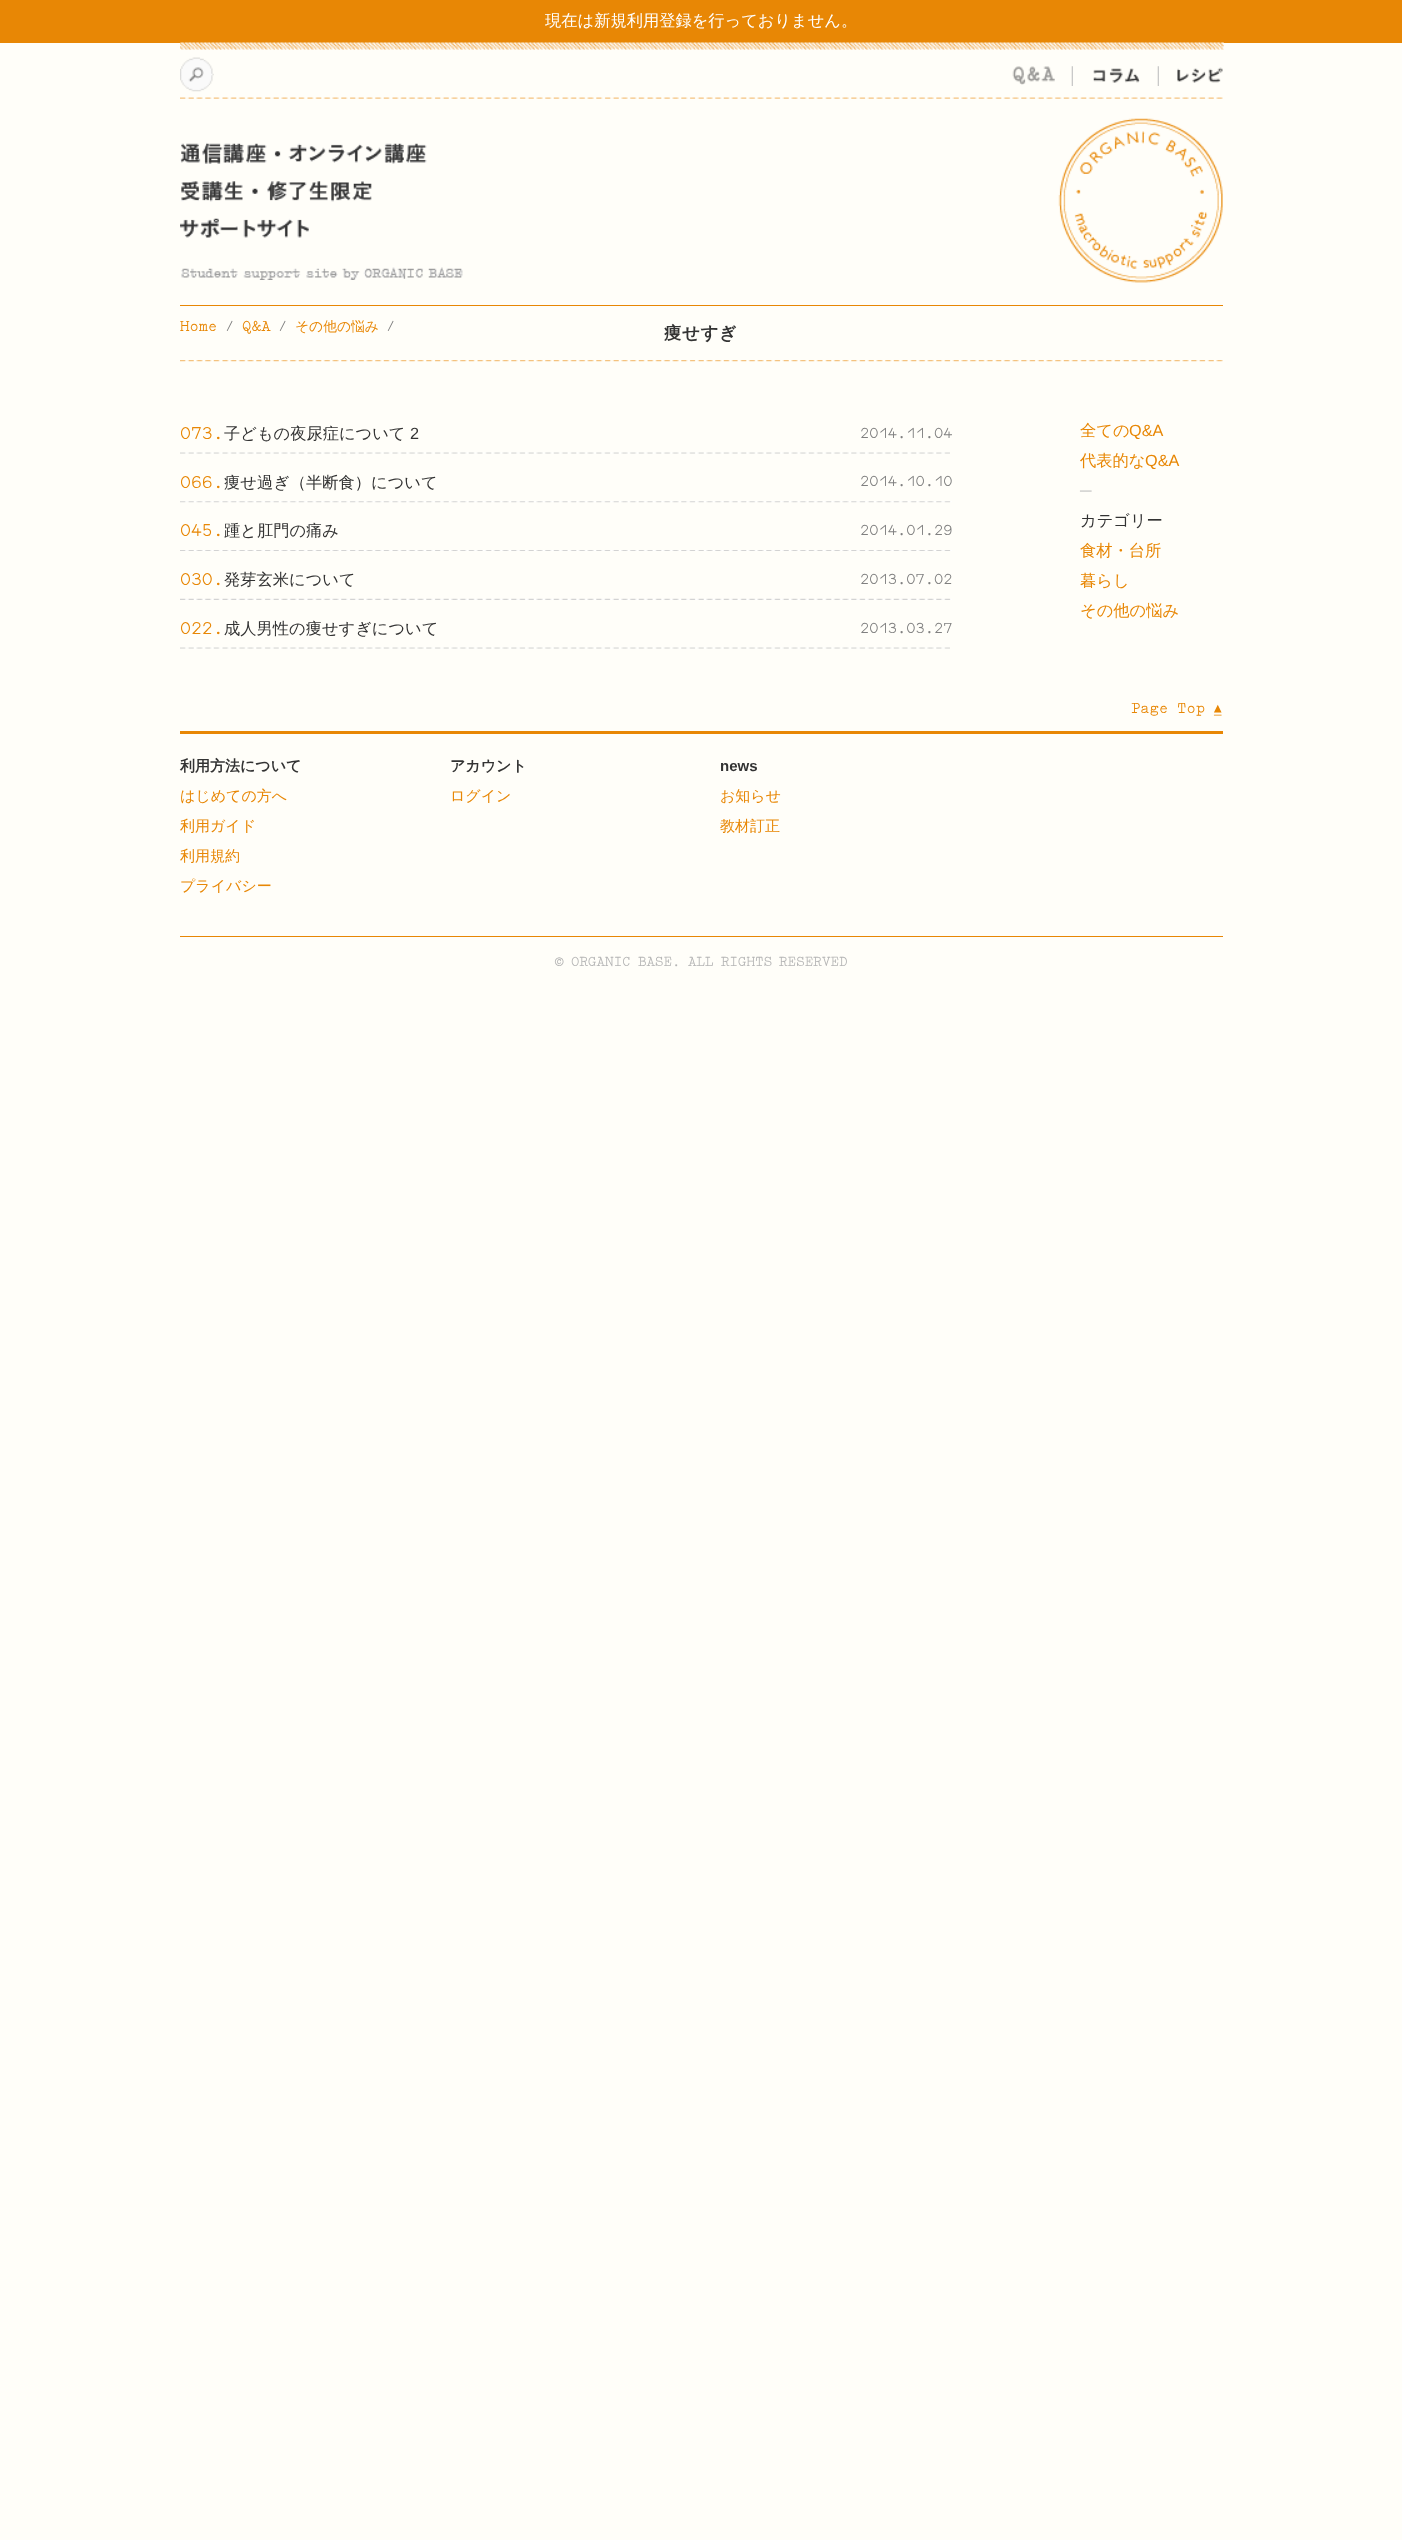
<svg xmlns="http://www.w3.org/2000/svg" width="1402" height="2540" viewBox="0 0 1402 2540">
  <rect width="100%" height="100%" fill="#fffef9"/>
  <rect x="0" y="0" width="1402" height="43" fill="#e88705"/>
  <text x="545" y="26" font-family="WenQuanYi Zen Hei" font-size="16.25" font-weight="500" fill="#ffffff">現在は新規利用登録を行っておりません。</text>
  <image x="180" y="42" width="1044" height="8" href="img1.png"/>
  <image x="180" y="57" width="34" height="35" href="img2.png"/>
  <image x="1012" y="66" width="43" height="19" href="img3.png"/>
  <text x="1068" y="81" font-family="Liberation Sans" font-size="16.25" fill="#c4c4c4">│</text>
  <image x="1093" y="68" width="47" height="15" href="img4.png"/>
  <text x="1154" y="81" font-family="Liberation Sans" font-size="16.25" fill="#c4c4c4">│</text>
  <image x="1177" y="67" width="46" height="16" href="img5.png"/>
  <image x="180" y="97" width="1043" height="2" href="img6.png"/>
  <image x="180" y="142" width="283" height="138" href="img7.png"/>
  <image x="1058" y="118" width="165" height="165" href="img8.png"/>
  <rect x="180" y="305" width="1043" height="1" fill="#e88705"/>
  <text x="180" y="331" font-family="'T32'" font-size="13.75" fill="#e88705">Home</text>
  <text x="225" y="331" font-family="'T32'" font-size="13.75" fill="#808080">/</text>
  <text x="242" y="331" font-family="'T32'" font-size="13.75" fill="#e88705">Q&amp;A</text>
  <text x="278" y="331" font-family="'T32'" font-size="13.75" fill="#808080">/</text>
  <text x="295" y="331" font-family="WenQuanYi Zen Hei" font-size="13.75" font-weight="500" fill="#e88705">その他の悩み</text>
  <text x="386" y="331" font-family="'T32'" font-size="13.75" fill="#808080">/</text>
  <text x="664" y="339" font-family="WenQuanYi Zen Hei" font-size="17.5" font-weight="bold" letter-spacing="0.5" fill="#333333">痩せすぎ</text>
  <image x="180" y="360" width="1043" height="2" href="img9.png"/>
  <text x="180" y="439" font-family="'T32'" font-size="16.25" fill="#e88705">073.</text>
  <text x="224" y="439" font-family="WenQuanYi Zen Hei" font-size="16.25" font-weight="500" fill="#333333">子どもの夜尿症について</text>
  <text x="410" y="439" font-family="Liberation Sans" font-size="16.25" fill="#333333">2</text>
  <text x="860" y="438" font-family="'T32'" font-size="13.75" fill="#808080">2014.11.04</text>
  <image x="180" y="452" width="770" height="2" href="img10.png"/>
  <text x="180" y="488" font-family="'T32'" font-size="16.25" fill="#e88705">066.</text>
  <text x="224" y="488" font-family="WenQuanYi Zen Hei" font-size="16.25" font-weight="500" fill="#333333">痩せ過ぎ（半断食）について</text>
  <text x="860" y="486" font-family="'T32'" font-size="13.75" fill="#808080">2014.10.10</text>
  <image x="180" y="501" width="772" height="2" href="img11.png"/>
  <text x="180" y="536" font-family="'T32'" font-size="16.25" fill="#e88705">045.</text>
  <text x="224" y="536" font-family="WenQuanYi Zen Hei" font-size="16.25" font-weight="500" fill="#333333">踵と肛門の痛み</text>
  <text x="860" y="535" font-family="'T32'" font-size="13.75" fill="#808080">2014.01.29</text>
  <image x="180" y="550" width="772" height="1" href="img12.png"/>
  <text x="180" y="585" font-family="'T32'" font-size="16.25" fill="#e88705">030.</text>
  <text x="224" y="585" font-family="WenQuanYi Zen Hei" font-size="16.25" font-weight="500" fill="#333333">発芽玄米について</text>
  <text x="860" y="584" font-family="'T32'" font-size="13.75" fill="#808080">2013.07.02</text>
  <image x="180" y="598" width="772" height="2" href="img13.png"/>
  <text x="180" y="634" font-family="'T32'" font-size="16.25" fill="#e88705">022.</text>
  <text x="224" y="634" font-family="WenQuanYi Zen Hei" font-size="16.25" font-weight="500" fill="#333333">成人男性の痩せすぎについて</text>
  <text x="860" y="633" font-family="'T32'" font-size="13.75" fill="#808080">2013.03.27</text>
  <image x="180" y="647" width="770" height="2" href="img10.png"/>
  <text x="1080" y="436" font-family="WenQuanYi Zen Hei" font-size="16.25" font-weight="500" fill="#e88705">全ての</text>
  <text x="1129" y="436" font-family="Liberation Sans" font-size="16.25" fill="#e88705">Q&amp;A</text>
  <text x="1080" y="466" font-family="WenQuanYi Zen Hei" font-size="16.25" font-weight="500" fill="#e88705">代表的な</text>
  <text x="1145" y="466" font-family="Liberation Sans" font-size="16.25" fill="#e88705">Q&amp;A</text>
  <text x="1080" y="496" font-family="Liberation Sans" font-size="16.25" fill="#c4c4c4">─</text>
  <text x="1080" y="526" font-family="WenQuanYi Zen Hei" font-size="16.25" font-weight="500" fill="#333333">カテゴリー</text>
  <text x="1080" y="556" font-family="WenQuanYi Zen Hei" font-size="16.25" font-weight="500" fill="#e88705">食材・台所</text>
  <text x="1080" y="586" font-family="WenQuanYi Zen Hei" font-size="16.25" font-weight="500" fill="#e88705">暮らし</text>
  <text x="1080" y="616" font-family="WenQuanYi Zen Hei" font-size="16.25" font-weight="500" fill="#e88705">その他の悩み</text>
  <rect x="180" y="731" width="1043" height="3" fill="#e88705"/>
  <text x="1131" y="713" font-family="'T32'" font-size="13.75" fill="#e88705">Page</text>
  <text x="1177" y="713" font-family="'T32'" font-size="13.75" fill="#e88705">Top</text>
  <text x="1213" y="713" font-family="'T32'" font-size="13.75" fill="#e88705">$</text>
  <text x="180" y="771" font-family="WenQuanYi Zen Hei" font-size="15" font-weight="bold" fill="#333333">利用方法について</text>
  <text x="180" y="801" font-family="WenQuanYi Zen Hei" font-size="15" font-weight="500" fill="#e88705">はじめての方へ</text>
  <text x="180" y="831" font-family="WenQuanYi Zen Hei" font-size="15" font-weight="500" fill="#e88705">利用ガイド</text>
  <text x="180" y="861" font-family="WenQuanYi Zen Hei" font-size="15" font-weight="500" fill="#e88705">利用規約</text>
  <text x="180" y="891" font-family="WenQuanYi Zen Hei" font-size="15" font-weight="500" fill="#e88705">プライバシー</text>
  <text x="450" y="771" font-family="WenQuanYi Zen Hei" font-size="15" font-weight="bold" fill="#333333">アカウント</text>
  <text x="450" y="801" font-family="WenQuanYi Zen Hei" font-size="15" font-weight="500" fill="#e88705">ログイン</text>
  <text x="720" y="771" font-family="Liberation Sans" font-size="15" font-weight="bold" fill="#333333">news</text>
  <text x="720" y="801" font-family="WenQuanYi Zen Hei" font-size="15" font-weight="500" fill="#e88705">お知らせ</text>
  <text x="720" y="831" font-family="WenQuanYi Zen Hei" font-size="15" font-weight="500" fill="#e88705">教材訂正</text>
  <rect x="180" y="936" width="1043" height="1" fill="#e88705"/>
  <text x="555" y="966" font-family="'T32'" font-size="12.5" fill="#b5b5b5">©</text>
  <text x="571" y="966" font-family="'T32'" font-size="12.5" fill="#b5b5b5">ORGANIC</text>
  <text x="638" y="966" font-family="'T32'" font-size="12.5" fill="#b5b5b5">BASE.</text>
  <text x="688" y="966" font-family="'T32'" font-size="12.5" fill="#b5b5b5">ALL</text>
  <text x="721" y="966" font-family="'T32'" font-size="12.5" fill="#b5b5b5">RIGHTS</text>
  <text x="779" y="966" font-family="'T32'" font-size="12.5" fill="#b5b5b5">RESERVED</text>
</svg>
